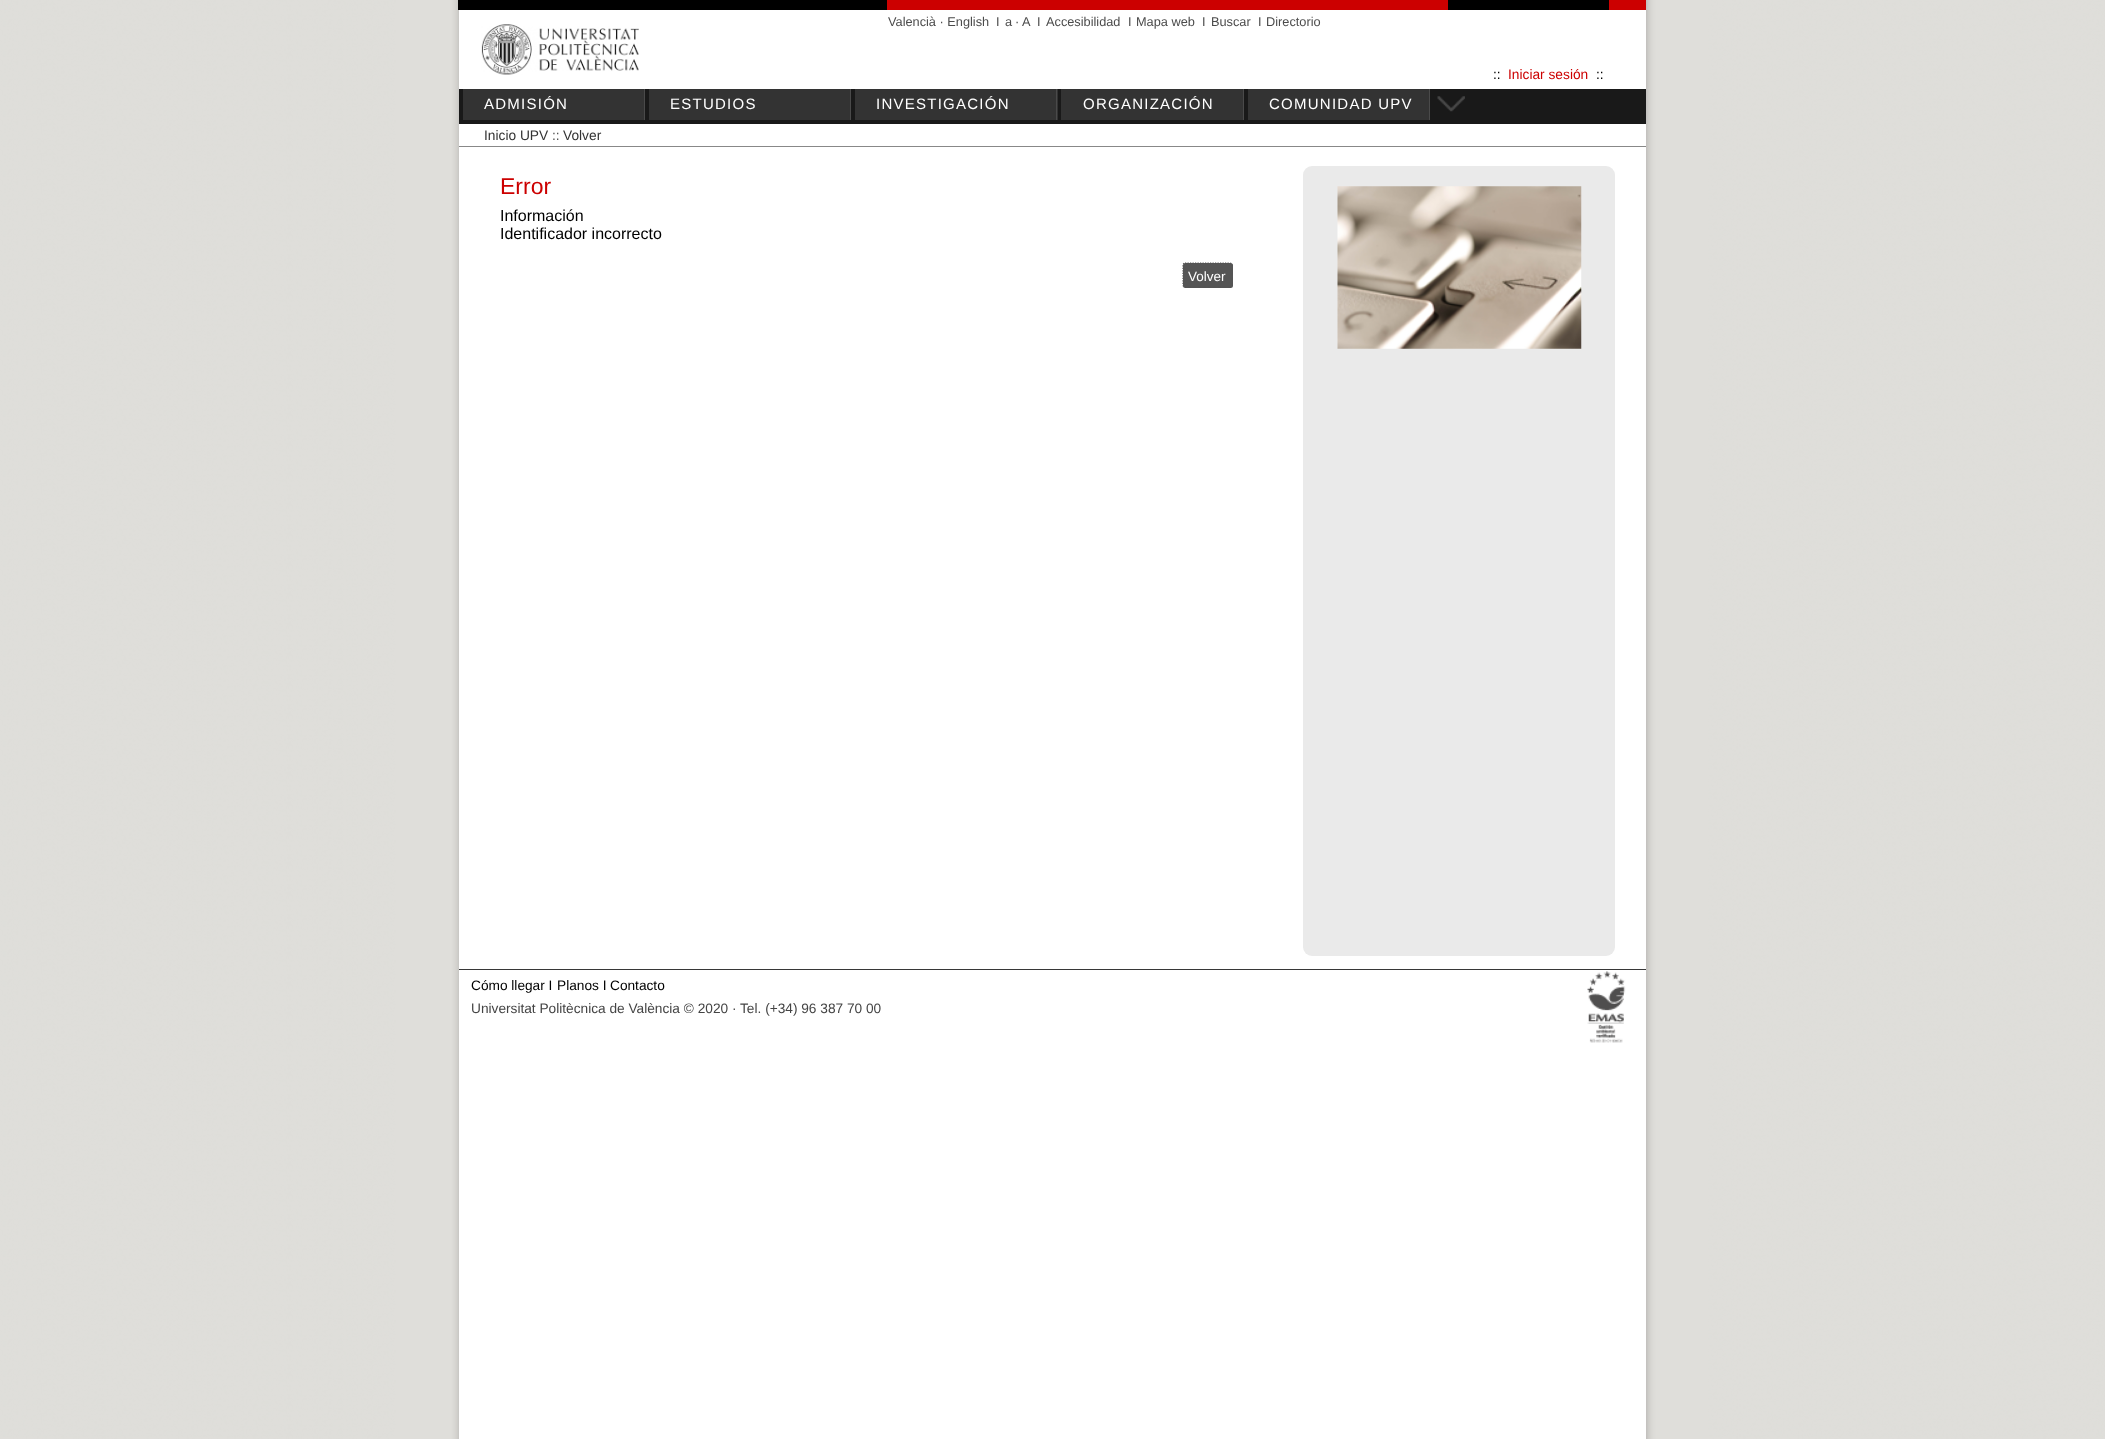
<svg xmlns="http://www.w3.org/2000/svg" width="2105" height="1439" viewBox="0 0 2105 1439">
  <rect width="100%" height="100%" fill="#ffffff"/>
  <image x="0" y="0" width="2105" height="1439" href="img1.png"/>
  <rect x="459" y="10" width="1187" height="1429" fill="#ffffff"/>
  <rect x="887" y="0" width="759" height="10" fill="#cc0000"/>
  <rect x="458" y="0" width="429" height="10" fill="#000000"/>
  <rect x="1448" y="0" width="161" height="10" fill="#000000"/>
  <image x="481" y="24" width="158" height="51" href="img2.png"/>
  <text x="888" y="26" font-family="Liberation Sans" font-size="12.75" fill="#4b4b4b">Valencià · English</text>
  <text x="996" y="26" font-family="Liberation Sans" font-size="12.75" fill="#4b4b4b">I</text>
  <text x="1005" y="26" font-family="Liberation Sans" font-size="12.75" fill="#4b4b4b">a</text>
  <text x="1015" y="26" font-family="Liberation Sans" font-size="12.75" fill="#4b4b4b">·</text>
  <text x="1022" y="26" font-family="Liberation Sans" font-size="12.75" fill="#4b4b4b">A</text>
  <text x="1037" y="26" font-family="Liberation Sans" font-size="12.75" fill="#4b4b4b">I</text>
  <text x="1046" y="26" font-family="Liberation Sans" font-size="12.75" fill="#4b4b4b">Accesibilidad</text>
  <text x="1128" y="26" font-family="Liberation Sans" font-size="12.75" fill="#4b4b4b">I</text>
  <text x="1136" y="26" font-family="Liberation Sans" font-size="12.75" fill="#4b4b4b">Mapa web</text>
  <text x="1202" y="26" font-family="Liberation Sans" font-size="12.75" fill="#4b4b4b">I</text>
  <text x="1211" y="26" font-family="Liberation Sans" font-size="12.75" fill="#4b4b4b">Buscar</text>
  <text x="1258" y="26" font-family="Liberation Sans" font-size="12.75" fill="#4b4b4b">I</text>
  <text x="1266" y="26" font-family="Liberation Sans" font-size="12.75" fill="#4b4b4b">Directorio</text>
  <text x="1493" y="79" font-family="Liberation Sans" font-size="13.75" fill="#000000">::</text>
  <text x="1508" y="79" font-family="Liberation Sans" font-size="13.75" fill="#cc0000">Iniciar sesión</text>
  <text x="1596" y="79" font-family="Liberation Sans" font-size="13.75" fill="#000000">::</text>
  <rect x="459" y="89" width="1187" height="35" fill="#191919"/>
  <rect x="463" y="89" width="181" height="31" fill="#333333"/>
  <rect x="644" y="89" width="1" height="31" fill="#4a4a4a"/>
  <text x="484" y="109" font-family="Liberation Sans" font-size="15" letter-spacing="1.25" fill="#ffffff">ADMISIÓN</text>
  <rect x="649" y="89" width="201" height="31" fill="#333333"/>
  <rect x="850" y="89" width="1" height="31" fill="#4a4a4a"/>
  <text x="670" y="109" font-family="Liberation Sans" font-size="15" letter-spacing="1.25" fill="#ffffff">ESTUDIOS</text>
  <rect x="855" y="89" width="203" height="31" fill="#333333"/>
  <rect x="1056" y="89" width="1" height="31" fill="#4a4a4a"/>
  <text x="876" y="109" font-family="Liberation Sans" font-size="15" letter-spacing="1.25" fill="#ffffff">INVESTIGACIÓN</text>
  <rect x="1061" y="89" width="182" height="31" fill="#333333"/>
  <rect x="1243" y="89" width="1" height="31" fill="#4a4a4a"/>
  <text x="1083" y="109" font-family="Liberation Sans" font-size="15" letter-spacing="1.25" fill="#ffffff">ORGANIZACIÓN</text>
  <rect x="1248" y="89" width="181" height="31" fill="#333333"/>
  <rect x="1429" y="89" width="1" height="31" fill="#4a4a4a"/>
  <text x="1269" y="109" font-family="Liberation Sans" font-size="15" letter-spacing="1.25" fill="#ffffff">COMUNIDAD UPV</text>
  <image x="1437" y="96" width="28" height="16" href="img3.png"/>
  <rect x="459" y="146" width="1187" height="1" fill="#888888"/>
  <text x="484" y="140" font-family="Liberation Sans" font-size="13.75" fill="#333333">Inicio UPV</text>
  <text x="552" y="140" font-family="Liberation Sans" font-size="13.75" fill="#555555">::</text>
  <text x="563" y="140" font-family="Liberation Sans" font-size="13.75" fill="#333333">Volver</text>
  <text x="500" y="194" font-family="Liberation Sans" font-size="23" fill="#cc0000">Error</text>
  <text x="500" y="221" font-family="Liberation Sans" font-size="16" fill="#000000">Información</text>
  <text x="500" y="239" font-family="Liberation Sans" font-size="16" fill="#000000">Identificador incorrecto</text>
  <rect x="1183" y="263" width="50" height="25" rx="2.5" fill="#555555"/>
  <path d="M1185 263H1230C1231 263 1232 264 1232 265V285C1232 286 1231 287 1230 287H1185C1184 287 1183 286 1183 285V265C1183 264 1184 263 1185 263Z" fill="none" stroke="#555555" stroke-width="1.2" stroke-dasharray="1.25 1.25"/>
  <text x="1188" y="281" font-family="Liberation Sans" font-size="13.5" fill="#ffffff">Volver</text>
  <rect x="1303" y="166" width="312" height="790" rx="9" fill="#eaeaea"/>
  <image x="1337" y="186" width="245" height="163" href="img4.png"/>
  <rect x="459" y="969" width="1187" height="1" fill="#373737"/>
  <text x="471" y="990" font-family="Liberation Sans" font-size="13.7" fill="#000000">Cómo llegar I</text>
  <text x="557" y="990" font-family="Liberation Sans" font-size="13.7" fill="#000000">Planos I</text>
  <text x="610" y="990" font-family="Liberation Sans" font-size="13.7" fill="#000000">Contacto</text>
  <text x="471" y="1013" font-family="Liberation Sans" font-size="13.7" fill="#444444">Universitat Politècnica de València © 2020 · Tel. (+34) 96 387 70 00</text>
  <image x="1587" y="971" width="39" height="72" href="img5.png"/>
</svg>
